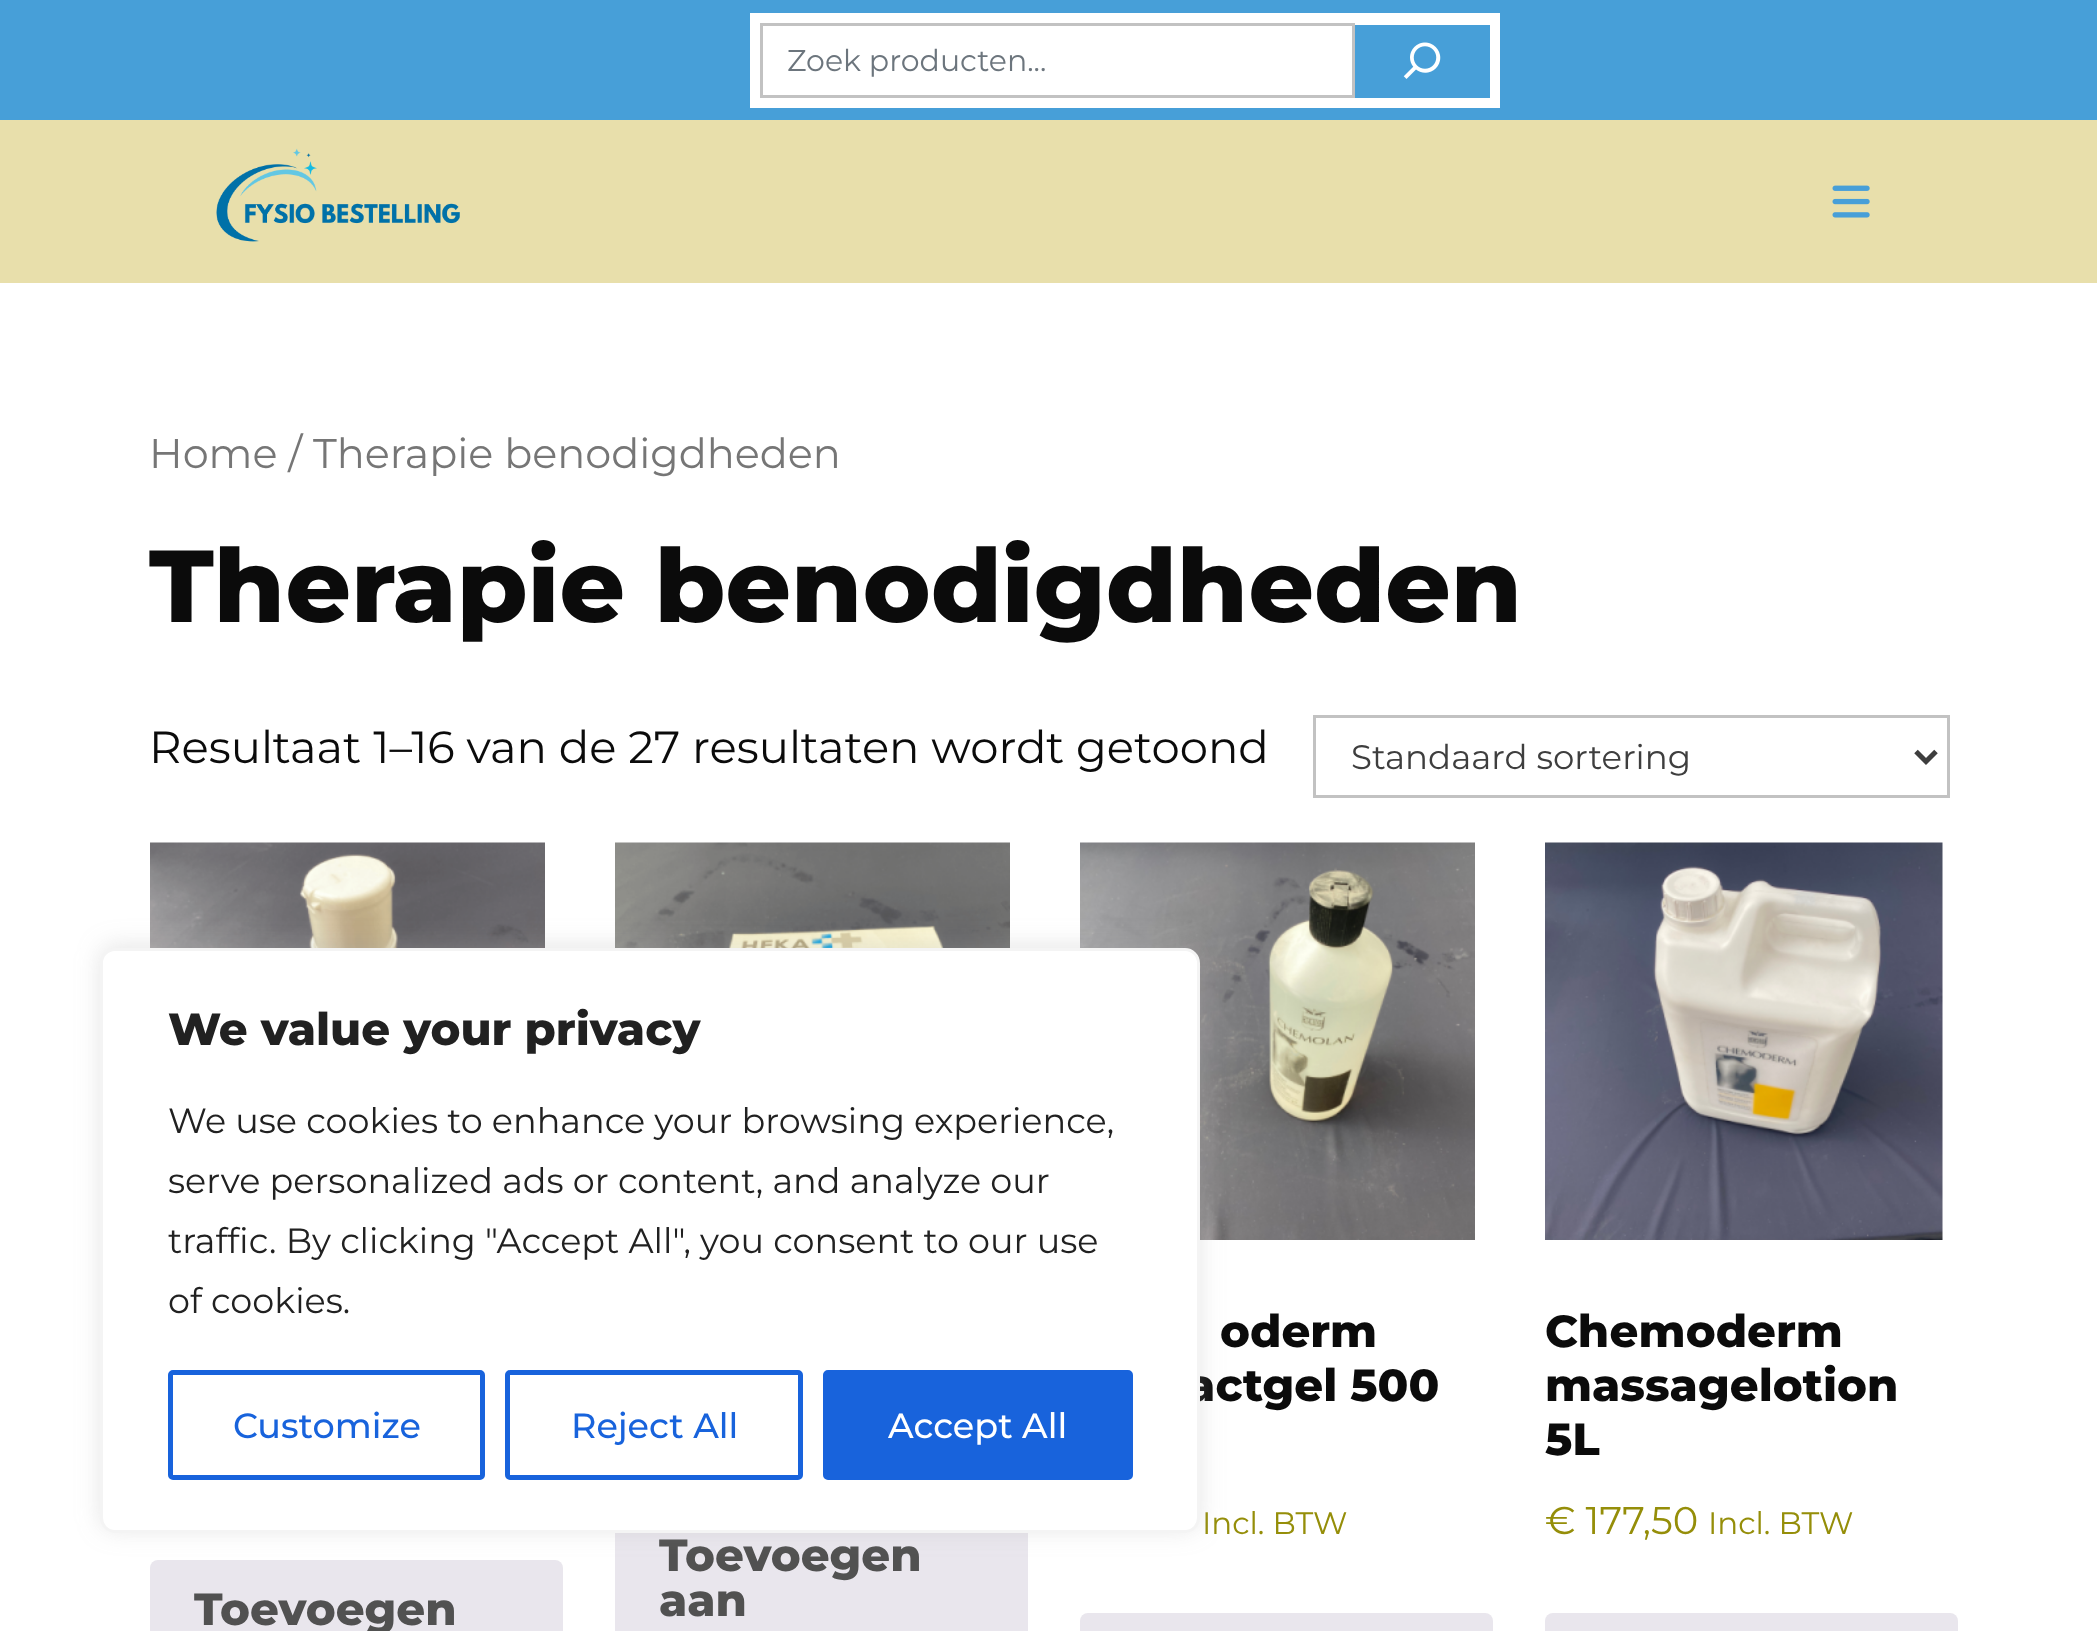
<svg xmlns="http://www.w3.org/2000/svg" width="2097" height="1631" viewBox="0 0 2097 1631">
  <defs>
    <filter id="blur1" x="-50%" y="-200%" width="200%" height="500%"><feGaussianBlur stdDeviation="12.5"/></filter>
  </defs>
  <rect width="100%" height="100%" fill="#ffffff"/>
  <rect x="0" y="120" width="2097" height="163" fill="#e8dfab"/>
  <rect x="0" y="0" width="2097" height="120" fill="#479fd8"/>
  <rect x="750" y="13" width="750" height="95" fill="#ffffff"/>
  <rect x="761.5" y="24.5" width="592" height="72" fill="none" stroke="#c2c2c2" stroke-width="3"/>
  <text x="787" y="71" font-family="Montserrat" font-size="30" fill="#6c757d">Zoek producten...</text>
  <rect x="1355" y="25" width="135" height="73" fill="#479fd8"/>
  <image x="1403" y="42" width="38" height="37" href="img1.png"/>
  <image x="216" y="148" width="244" height="94" href="img2.png"/>
  <image x="1832" y="185" width="38" height="33" href="img3.png"/>
  <text x="149" y="468" font-family="Montserrat" font-size="41.4" fill="#767676">Home / Therapie benodigdheden</text>
  <text x="149" y="622" font-family="Montserrat" font-size="102" font-weight="800" fill="#0b0b0b">Therapie benodigdheden</text>
  <text x="149" y="763" font-family="Montserrat" font-size="45" fill="#0b0b0b">Resultaat 1–16 van de 27 resultaten wordt getoond</text>
  <rect x="1314.5" y="716.5" width="634" height="80" fill="none" stroke="#c2c2c2" stroke-width="3"/>
  <path d="M1916 751.5L1926 761.5L1936 751.5" fill="none" stroke="#3e3e3e" stroke-width="5"/>
  <text x="1351" y="769" font-family="Montserrat" font-size="34" fill="#3e3e3e">Standaard sortering</text>
  <image x="1080" y="842" width="395" height="398" href="img4.png"/>
  <text x="1220" y="1347" font-family="Montserrat" font-size="45" font-weight="800" fill="#0b0b0b">oderm</text>
  <text x="1187" y="1401" font-family="Montserrat" font-size="45" font-weight="800" fill="#0b0b0b">actgel 500</text>
  <text x="1202" y="1534" font-family="Montserrat" font-size="31" fill="#958e09">Incl. BTW</text>
  <rect x="1080" y="1613" width="413" height="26" rx="8" fill="#e9e6ed"/>
  <image x="1545" y="842" width="398" height="398" href="img5.png"/>
  <text x="1545" y="1347" font-family="Montserrat" font-size="45" font-weight="800" fill="#0b0b0b">Chemoderm</text>
  <text x="1545" y="1401" font-family="Montserrat" font-size="45" font-weight="800" fill="#0b0b0b">massagelotion</text>
  <text x="1545" y="1455" font-family="Montserrat" font-size="45" font-weight="800" fill="#0b0b0b">5L</text>
  <text x="1545" y="1534" font-family="Montserrat" font-size="38.5" fill="#958e09">€ 177,50</text>
  <text x="1708" y="1534" font-family="Montserrat" font-size="31" fill="#958e09">Incl. BTW</text>
  <rect x="1545" y="1613" width="413" height="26" rx="8" fill="#e9e6ed"/>
  <image x="150" y="842" width="395" height="106" href="img6.png"/>
  <rect x="150" y="1560" width="413" height="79" rx="8" fill="#e9e6ed"/>
  <text x="194" y="1625" font-family="Montserrat" font-size="45" font-weight="800" fill="#515151">Toevoegen</text>
  <image x="615" y="842" width="395" height="106" href="img7.png"/>
  <rect x="615" y="1533" width="413" height="98" fill="#e9e6ed"/>
  <text x="659" y="1571" font-family="Montserrat" font-size="45" font-weight="800" fill="#515151">Toevoegen</text>
  <text x="659" y="1616" font-family="Montserrat" font-size="45" font-weight="800" fill="#515151">aan</text>
  <rect x="100" y="945" width="1100" height="585" rx="15" fill="#acabab" fill-opacity="0.3" filter="url(#blur1)"/>
  <rect x="101.5" y="949.5" width="1097" height="582" rx="13.5" fill="#ffffff" stroke="#f4f4f4" stroke-width="3"/>
  <text x="168" y="1045" font-family="Montserrat" font-size="45" font-weight="800" fill="#212121">We value your privacy</text>
  <text x="168" y="1133" font-family="Montserrat" font-size="35" fill="#212121">We use cookies to enhance your browsing experience,</text>
  <text x="168" y="1193" font-family="Montserrat" font-size="35" fill="#212121">serve personalized ads or content, and analyze our</text>
  <text x="168" y="1253" font-family="Montserrat" font-size="35" fill="#212121">traffic. By clicking "Accept All", you consent to our use</text>
  <text x="168" y="1313" font-family="Montserrat" font-size="35" fill="#212121">of cookies.</text>
  <rect x="170.5" y="1372.5" width="312" height="105" rx="2.5" fill="none" stroke="#1863dc" stroke-width="5"/>
  <text x="233" y="1438" font-family="Montserrat" font-size="35" font-weight="500" fill="#1863dc">Customize</text>
  <rect x="507.5" y="1372.5" width="293" height="105" rx="2.5" fill="none" stroke="#1863dc" stroke-width="5"/>
  <text x="571" y="1438" font-family="Montserrat" font-size="35" font-weight="500" fill="#1863dc">Reject All</text>
  <rect x="825.5" y="1372.5" width="305" height="105" rx="2.5" fill="#1863dc" stroke="#1863dc" stroke-width="5"/>
  <text x="888" y="1438" font-family="Montserrat" font-size="35" font-weight="500" fill="#ffffff">Accept All</text>
</svg>
